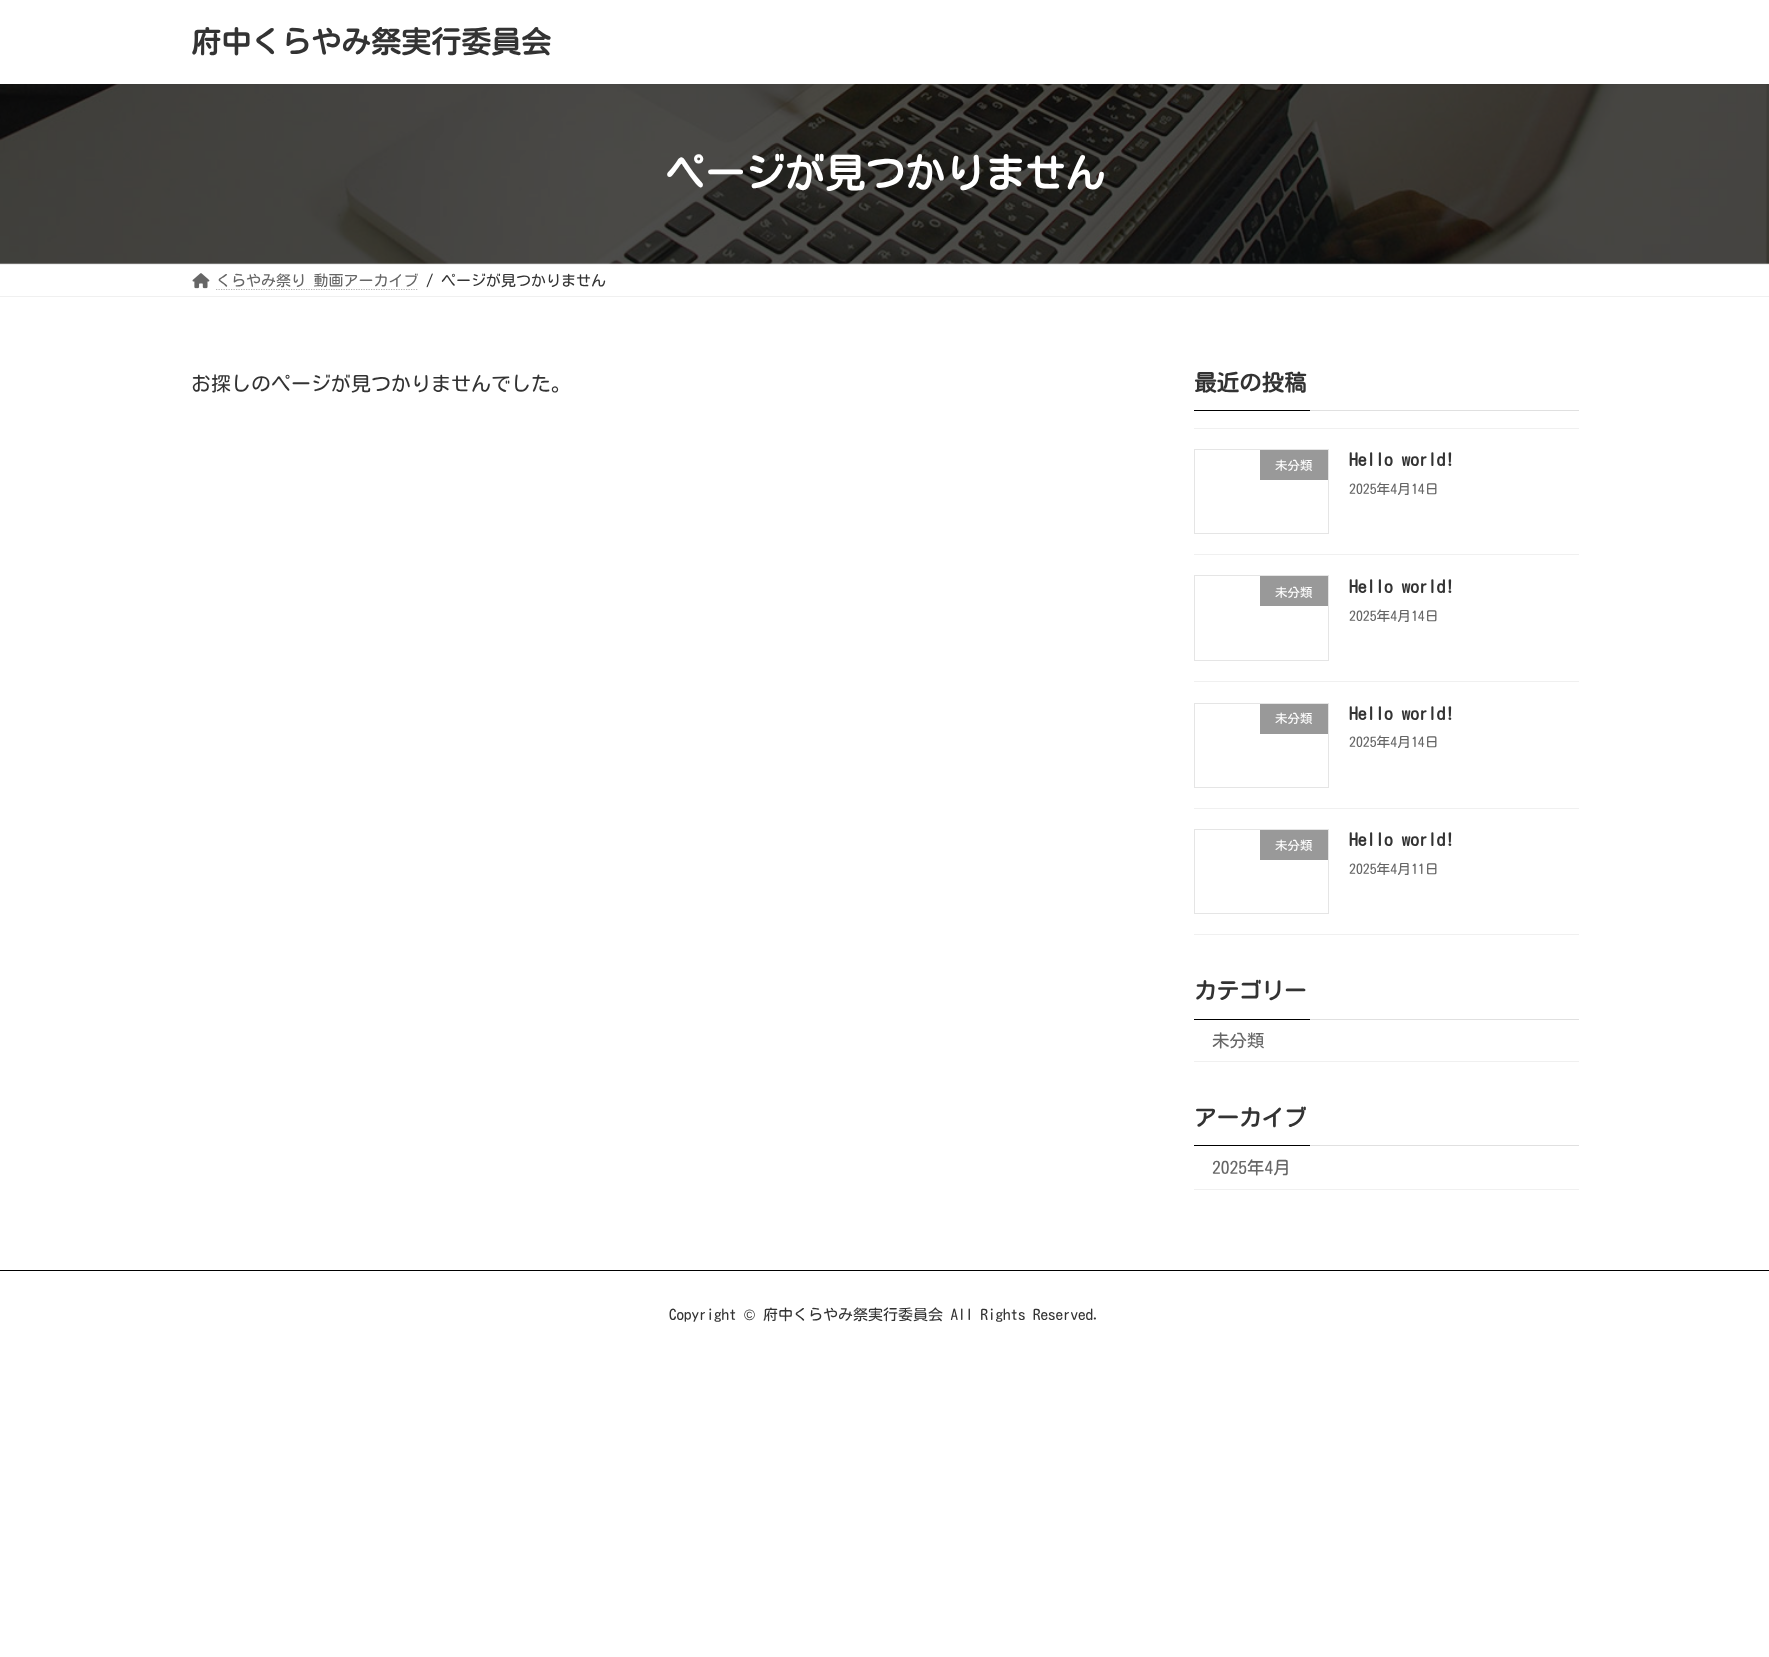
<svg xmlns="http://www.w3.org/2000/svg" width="1769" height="1657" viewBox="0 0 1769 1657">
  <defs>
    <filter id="blur1" x="-50%" y="-200%" width="200%" height="500%"><feGaussianBlur stdDeviation="2"/></filter>
  </defs>
  <rect width="100%" height="100%" fill="#ffffff"/>
  <image x="0" y="84" width="1769" height="180" href="img1.png"/>
  <rect x="0" y="1" width="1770" height="84" fill="#000000" fill-opacity="0.05" filter="url(#blur1)"/>
  <rect x="0" y="0" width="1769" height="84" fill="#ffffff"/>
  <text x="191" y="53" font-family="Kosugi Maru" font-size="30" font-weight="bold" fill="#333333">府中くらやみ祭実行委員会</text>
  <text x="665" y="188" font-family="Kosugi Maru" font-size="40" font-weight="bold" fill="#ffffff">ページが見つかりません</text>
  <rect x="0" y="264" width="1769" height="1" fill="#f0f0f0"/>
  <rect x="0" y="296" width="1769" height="1" fill="#f0f0f0"/>
  <image x="192" y="273" width="18" height="16" href="img2.png"/>
  <text x="216" y="286" font-family="Kosugi Maru" font-size="15" fill="#666666">くらやみ祭り 動画アーカイブ</text>
  <path d="M216 289.5H418.5" fill="none" stroke="#b3b3b3" stroke-width="1.2" stroke-dasharray="1.25 1.25"/>
  <text x="426" y="286" font-family="Kosugi Maru" font-size="15" fill="#333333">/ ページが見つかりません</text>
  <text x="191" y="391" font-family="Kosugi Maru" font-size="20" fill="#333333">お探しのページが見つかりませんでした。</text>
  <rect x="1310" y="410" width="269" height="1" fill="#e0e0e0"/>
  <text x="1194" y="391" font-family="Kosugi Maru" font-size="22.5" font-weight="bold" fill="#333333">最近の投稿</text>
  <rect x="1194" y="410" width="116" height="1" fill="#000000"/>
  <rect x="1194" y="428" width="385" height="1" fill="#f0f0f0"/>
  <rect x="1194" y="554" width="385" height="1" fill="#f0f0f0"/>
  <rect x="1194.5" y="449.5" width="134" height="84" fill="none" stroke="#e5e5e5"/>
  <rect x="1260" y="450" width="68" height="30" fill="#999999"/>
  <text x="1275" y="470" font-family="Kosugi Maru" font-size="12.5" fill="#ffffff">未分類</text>
  <text x="1349" y="466" font-family="Kosugi Maru" font-size="17.5" font-weight="bold" fill="#333333">Hello world!</text>
  <text x="1349" y="494" font-family="Kosugi Maru" font-size="13.75" fill="#666666">2025年4月14日</text>
  <rect x="1194" y="681" width="385" height="1" fill="#f0f0f0"/>
  <rect x="1194.5" y="575.5" width="134" height="85" fill="none" stroke="#e5e5e5"/>
  <rect x="1260" y="576" width="68" height="30" fill="#999999"/>
  <text x="1275" y="597" font-family="Kosugi Maru" font-size="12.5" fill="#ffffff">未分類</text>
  <text x="1349" y="593" font-family="Kosugi Maru" font-size="17.5" font-weight="bold" fill="#333333">Hello world!</text>
  <text x="1349" y="621" font-family="Kosugi Maru" font-size="13.75" fill="#666666">2025年4月14日</text>
  <rect x="1194" y="808" width="385" height="1" fill="#f0f0f0"/>
  <rect x="1194.5" y="703.5" width="134" height="84" fill="none" stroke="#e5e5e5"/>
  <rect x="1260" y="704" width="68" height="30" fill="#999999"/>
  <text x="1275" y="723" font-family="Kosugi Maru" font-size="12.5" fill="#ffffff">未分類</text>
  <text x="1349" y="720" font-family="Kosugi Maru" font-size="17.5" font-weight="bold" fill="#333333">Hello world!</text>
  <text x="1349" y="747" font-family="Kosugi Maru" font-size="13.75" fill="#666666">2025年4月14日</text>
  <rect x="1194" y="934" width="385" height="1" fill="#f0f0f0"/>
  <rect x="1194.5" y="829.5" width="134" height="84" fill="none" stroke="#e5e5e5"/>
  <rect x="1260" y="830" width="68" height="30" fill="#999999"/>
  <text x="1275" y="850" font-family="Kosugi Maru" font-size="12.5" fill="#ffffff">未分類</text>
  <text x="1349" y="846" font-family="Kosugi Maru" font-size="17.5" font-weight="bold" fill="#333333">Hello world!</text>
  <text x="1349" y="874" font-family="Kosugi Maru" font-size="13.75" fill="#666666">2025年4月11日</text>
  <rect x="1310" y="1019" width="269" height="1" fill="#e0e0e0"/>
  <text x="1194" y="999" font-family="Kosugi Maru" font-size="22.5" font-weight="bold" fill="#333333">カテゴリー</text>
  <rect x="1194" y="1019" width="116" height="1" fill="#000000"/>
  <rect x="1194" y="1061" width="385" height="1" fill="#f0f0f0"/>
  <text x="1212" y="1047" font-family="Kosugi Maru" font-size="17.5" fill="#666666">未分類</text>
  <rect x="1310" y="1145" width="269" height="1" fill="#e0e0e0"/>
  <text x="1194" y="1126" font-family="Kosugi Maru" font-size="22.5" font-weight="bold" fill="#333333">アーカイブ</text>
  <rect x="1194" y="1145" width="116" height="1" fill="#000000"/>
  <rect x="1194" y="1189" width="385" height="1" fill="#f0f0f0"/>
  <text x="1212" y="1174" font-family="Kosugi Maru" font-size="17.5" fill="#666666">2025年4月</text>
  <rect x="0" y="1270" width="1769" height="1" fill="#000000"/>
  <text x="669" y="1320" font-family="Kosugi Maru" font-size="15" fill="#333333">Copyright</text>
  <text x="744" y="1320" font-family="Liberation Sans" font-size="15" fill="#333333">©</text>
  <text x="763" y="1320" font-family="Kosugi Maru" font-size="15" fill="#333333">府中くらやみ祭実行委員会 All Rights Reserved.</text>
</svg>
